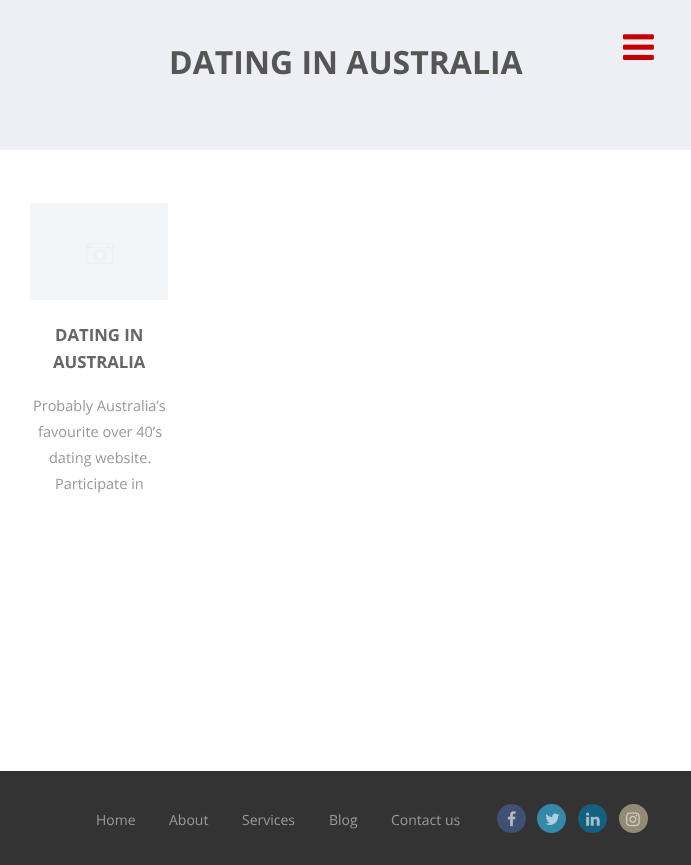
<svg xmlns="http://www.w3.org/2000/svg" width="691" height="865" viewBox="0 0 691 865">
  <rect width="100%" height="100%" fill="#ffffff"/>
  <rect x="0" y="0" width="691" height="150" fill="#eeeff5"/>
  <image x="623" y="34" width="31" height="26" href="img1.png"/>
  <text x="169" y="74" font-family="Open Sans" font-size="32" font-weight="bold" fill="#555555">DATING IN AUSTRALIA</text>
  <image x="30" y="203" width="138" height="97" href="img2.png"/>
  <text x="55" y="341" font-family="Open Sans" font-size="16.75" font-weight="bold" fill="#666666">DATING IN</text>
  <text x="53" y="368" font-family="Open Sans" font-size="16.75" font-weight="bold" fill="#666666">AUSTRALIA</text>
  <text x="33" y="411" font-family="Open Sans" font-size="14.5" fill="#999999">Probably Australia’s</text>
  <text x="38" y="437" font-family="Open Sans" font-size="14.5" fill="#999999">favourite over 40’s</text>
  <text x="49" y="463" font-family="Open Sans" font-size="14.5" fill="#999999">dating website.</text>
  <text x="55" y="489" font-family="Open Sans" font-size="14.5" fill="#999999">Participate in</text>
  <rect x="0" y="771" width="691" height="94" fill="#333333"/>
  <text x="96" y="825" font-family="Open Sans" font-size="14" fill="#999999">Home</text>
  <text x="169" y="825" font-family="Open Sans" font-size="14" fill="#999999">About</text>
  <text x="242" y="825" font-family="Open Sans" font-size="14" fill="#999999">Services</text>
  <text x="329" y="825" font-family="Open Sans" font-size="14" fill="#999999">Blog</text>
  <text x="391" y="825" font-family="Open Sans" font-size="14" fill="#999999">Contact us</text>
  <circle cx="511.5" cy="818.5" r="14.5" fill="#3f5073"/>
  <image x="507" y="811" width="9" height="16" href="img3.png"/>
  <circle cx="551.5" cy="818.5" r="14.5" fill="#3489a8"/>
  <image x="545" y="813" width="15" height="12" href="img4.png"/>
  <circle cx="592.5" cy="818.5" r="14.5" fill="#156080"/>
  <image x="586" y="812" width="14" height="14" href="img5.png"/>
  <circle cx="633.5" cy="818.5" r="14.5" fill="#948b77"/>
  <image x="626" y="812" width="14" height="15" href="img6.png"/>
</svg>
